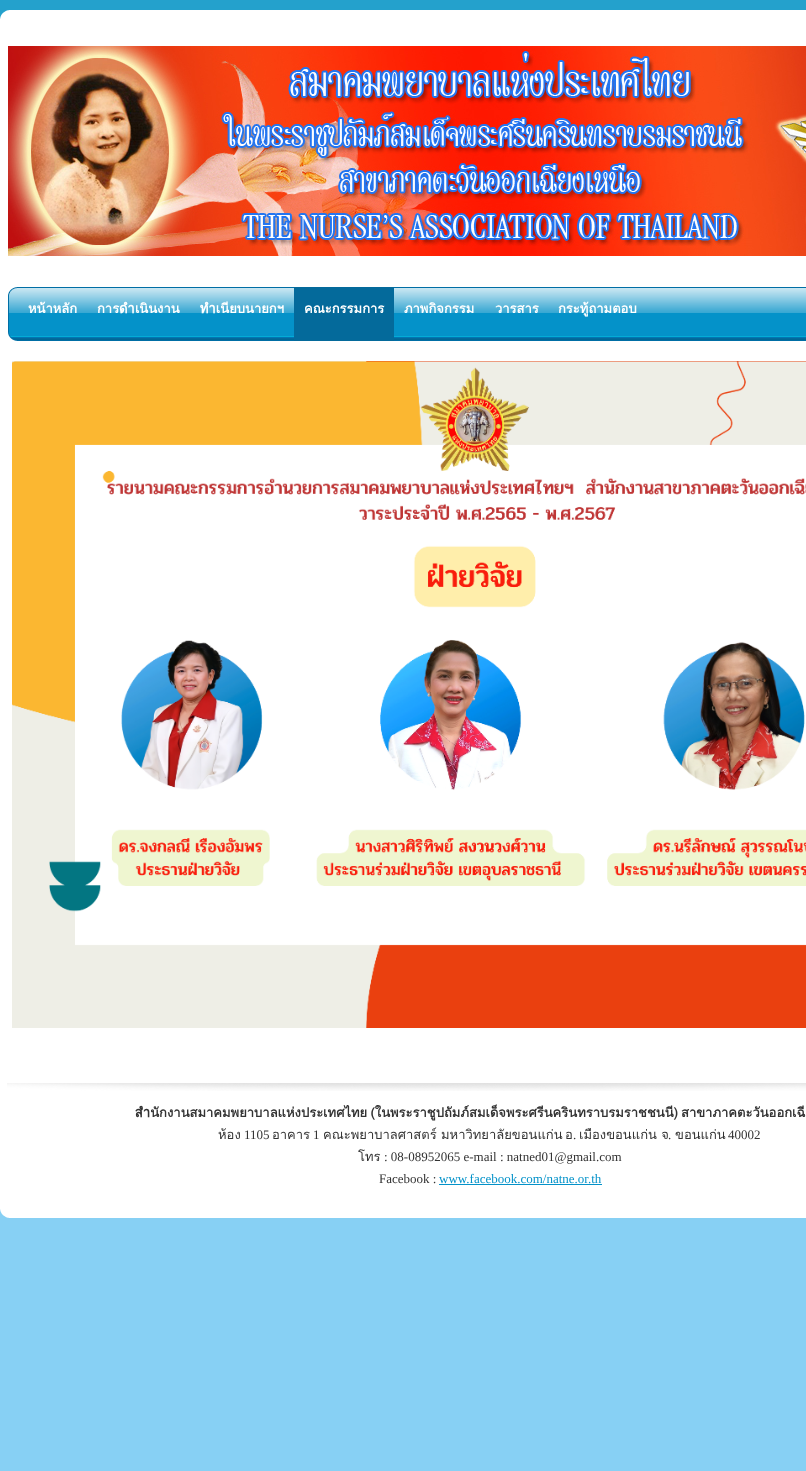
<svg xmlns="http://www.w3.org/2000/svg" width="806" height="1471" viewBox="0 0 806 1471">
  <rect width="100%" height="100%" fill="#87d0f4"/>
  <image x="0" y="0" width="806" height="19" href="img1.png"/>
  <rect x="0" y="19" width="806" height="1190" fill="#ffffff"/>
  <image x="8" y="46" width="798" height="210" href="img2.png"/>
  <image x="8" y="287" width="798" height="54" href="img3.png"/>
  <text x="28" y="313" font-family="Loma" font-size="13" font-weight="bold" fill="#ffffff">หน้าหลัก</text>
  <text x="97" y="313" font-family="Loma" font-size="13" font-weight="bold" fill="#ffffff">การดำเนินงาน</text>
  <text x="200" y="313" font-family="Loma" font-size="13" font-weight="bold" fill="#ffffff">ทำเนียบนายกฯ</text>
  <rect x="294" y="287" width="100" height="54" fill="#046a9b"/>
  <text x="304" y="313" font-family="Loma" font-size="13" font-weight="bold" fill="#ffffff">คณะกรรมการ</text>
  <text x="404" y="313" font-family="Loma" font-size="13" font-weight="bold" fill="#ffffff">ภาพกิจกรรม</text>
  <text x="495" y="313" font-family="Loma" font-size="13" font-weight="bold" fill="#ffffff">วารสาร</text>
  <text x="558" y="313" font-family="Loma" font-size="13" font-weight="bold" fill="#ffffff">กระทู้ถามตอบ</text>
  <image x="12" y="361" width="794" height="667" href="img4.png"/>
  <image x="7" y="1083" width="799" height="8" href="img5.png"/>
  <text x="135" y="1117" word-spacing="-1" font-family="Loma" font-size="13" font-weight="bold" fill="#333333">สำนักงานสมาคมพยาบาลแห่งประเทศไทย (ในพระราชูปถัมภ์สมเด็จพระศรีนครินทราบรมราชชนนี)</text>
  <text x="681" y="1117" font-family="Loma" font-size="13" font-weight="bold" fill="#333333">สาขาภาคตะวันออกเฉี</text>
  <text x="218" y="1139" font-family="Loma" font-size="13" fill="#333333">ห้อง</text>
  <text x="244" y="1139" font-family="Liberation Serif" font-size="13" fill="#333333">1105</text>
  <text x="272" y="1139" font-family="Loma" font-size="13" fill="#333333">อาคาร</text>
  <text x="313" y="1139" font-family="Liberation Serif" font-size="13" fill="#333333">1</text>
  <text x="323" y="1139" font-family="Loma" font-size="13" fill="#333333">คณะพยาบาลศาสตร์ มหาวิทยาลัยขอนแก่น</text>
  <text x="565" y="1139" font-family="Loma" font-size="13" fill="#333333">อ</text>
  <text x="573" y="1139" font-family="Liberation Serif" font-size="13" fill="#333333">.</text>
  <text x="579" y="1139" font-family="Loma" font-size="13" fill="#333333">เมืองขอนแก่น จ</text>
  <text x="668" y="1139" font-family="Liberation Serif" font-size="13" fill="#333333">.</text>
  <text x="675" y="1139" font-family="Loma" font-size="13" fill="#333333">ขอนแก่น</text>
  <text x="728" y="1139" font-family="Liberation Serif" font-size="13" fill="#333333">40002</text>
  <text x="358" y="1161" font-family="Loma" font-size="13" fill="#333333">โทร</text>
  <text x="384" y="1161" font-family="Liberation Serif" font-size="13" fill="#333333">: 08-08952065 e-mail : natned01@gmail.com</text>
  <text x="379" y="1183" font-family="Liberation Serif" font-size="13" fill="#333333">Facebook :</text>
  <text x="439" y="1183" font-family="Liberation Serif" font-size="13" fill="#0492c9">www.facebook.com/natne.or.th</text>
  <rect x="439" y="1184" width="163" height="1" fill="#0492c9"/>
  <image x="0" y="1209" width="806" height="19" href="img6.png"/>
</svg>
